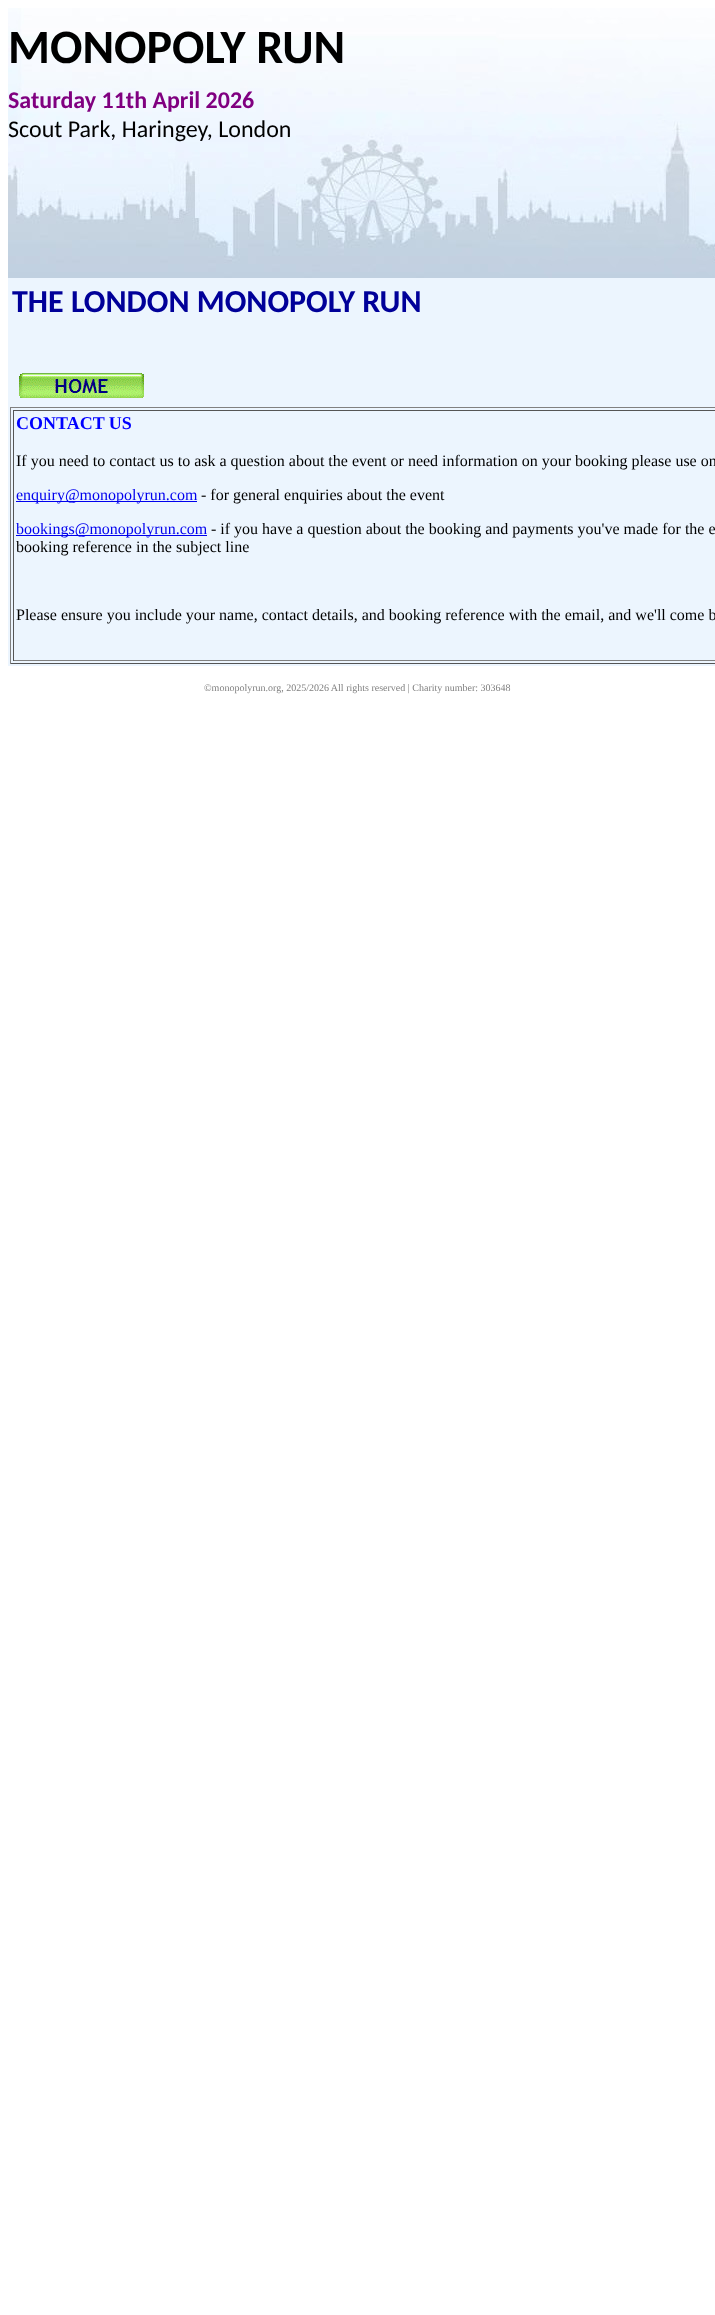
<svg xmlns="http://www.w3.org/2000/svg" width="715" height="2315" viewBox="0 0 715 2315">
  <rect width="100%" height="100%" fill="#ffffff"/>
  <rect x="8" y="278" width="707" height="388" fill="#ecf5fe"/>
  <image x="8" y="8" width="707" height="270" href="img1.png"/>
  <text x="8" y="63" font-family="Carlito" font-size="48" font-weight="bold" fill="#000000">MONOPOLY RUN</text>
  <text x="8" y="108" font-family="Carlito" font-size="24" font-weight="bold" fill="#800080">Saturday 11th April 2026</text>
  <text x="8" y="137" font-family="Carlito" font-size="24" fill="#000000">Scout Park, Haringey, London</text>
  <text x="12" y="312" font-family="Carlito" font-size="32" font-weight="bold" fill="#000099">THE LONDON MONOPOLY RUN</text>
  <image x="19" y="373" width="125" height="25" href="img2.png"/>
  <rect x="10" y="407" width="705" height="1" fill="#808080"/>
  <rect x="10" y="663" width="705" height="1" fill="#555555"/>
  <rect x="10" y="407" width="1" height="257" fill="#808080"/>
  <rect x="13" y="410" width="702" height="1" fill="#555555"/>
  <rect x="13" y="660" width="702" height="1" fill="#808080"/>
  <rect x="13" y="410" width="1" height="251" fill="#555555"/>
  <text x="16" y="429" font-family="Liberation Serif" font-size="18" font-weight="bold" fill="#0000ff">CONTACT US</text>
  <text x="16" y="466" font-family="Liberation Serif" font-size="16" fill="#000000">If you need to contact us to ask a question about the event or need information on your booking please use on</text>
  <rect x="16" y="501" width="181" height="1" fill="#0000ee"/>
  <text x="16" y="500" font-family="Liberation Serif" font-size="16" fill="#0000ee">enquiry@monopolyrun.com</text>
  <text x="201" y="500" font-family="Liberation Serif" font-size="16" fill="#000000">- for general enquiries about the event</text>
  <rect x="16" y="535" width="191" height="1" fill="#0000ee"/>
  <text x="16" y="534" font-family="Liberation Serif" font-size="16" fill="#0000ee">bookings@monopolyrun.com</text>
  <text x="211" y="534" font-family="Liberation Serif" font-size="16" fill="#000000">- if you have a question about the booking and payments you've made for the e</text>
  <text x="16" y="552" font-family="Liberation Serif" font-size="16" fill="#000000">booking reference in the subject line</text>
  <text x="16" y="620" font-family="Liberation Serif" font-size="16" fill="#000000">Please ensure you include your name, contact details, and booking reference with the email, and we'll come b</text>
  <text x="204" y="691" font-family="Liberation Serif" font-size="10" fill="#808080">©monopolyrun.org, 2025/2026 All rights reserved | Charity number: 303648</text>
</svg>
